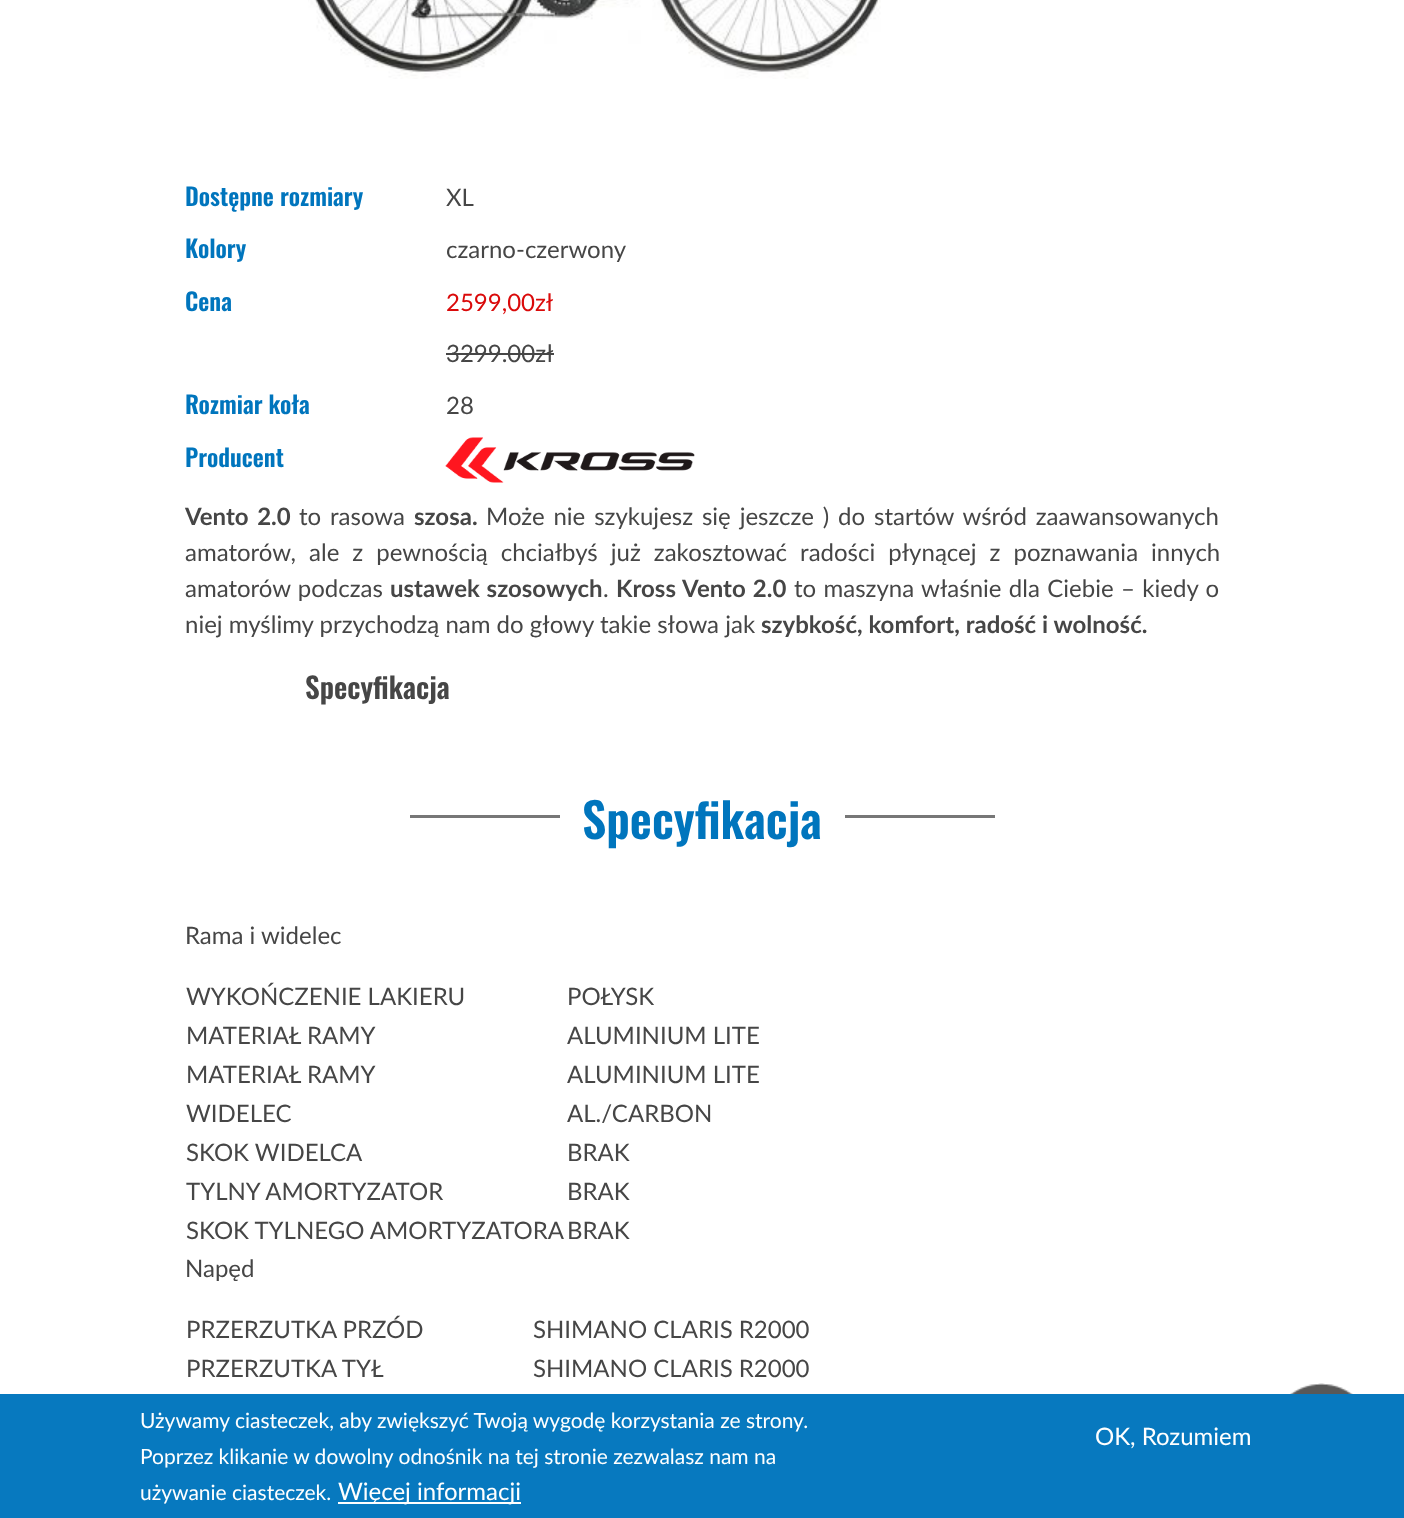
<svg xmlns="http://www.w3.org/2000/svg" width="1404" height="1518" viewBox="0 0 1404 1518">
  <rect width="100%" height="100%" fill="#ffffff"/>
  <image x="308" y="0" width="573" height="79" href="img1.png"/>
  <text x="185" y="206" font-family="Oswald" font-size="24" font-weight="600" fill="#0075bd">Dostępne rozmiary</text>
  <text x="446" y="206" font-family="Lato" font-size="24" fill="#464646">XL</text>
  <text x="185" y="258" font-family="Oswald" font-size="24" font-weight="600" fill="#0075bd">Kolory</text>
  <text x="446" y="258" font-family="Lato" font-size="24" fill="#464646">czarno-czerwony</text>
  <text x="185" y="311" font-family="Oswald" font-size="24" font-weight="600" fill="#0075bd">Cena</text>
  <text x="446" y="311" font-family="Lato" font-size="24" fill="#da0a0a">2599,00zł</text>
  <text x="446" y="362" font-family="Lato" font-size="24" fill="#464646">3299.00zł</text>
  <rect x="446" y="353" width="108" height="2" fill="#464646"/>
  <text x="185" y="414" font-family="Oswald" font-size="24" font-weight="600" fill="#0075bd">Rozmiar koła</text>
  <text x="446" y="414" font-family="Lato" font-size="24" fill="#464646">28</text>
  <text x="185" y="467" font-family="Oswald" font-size="24" font-weight="600" fill="#0075bd">Producent</text>
  <image x="445" y="437" width="250" height="46" href="img2.png"/>
  <text x="185" y="525" word-spacing="2.75" font-family="Lato" font-size="24" font-weight="bold" fill="#464646">Vento 2.0</text>
  <text x="299" y="525" word-spacing="2.75" font-family="Lato" font-size="24" fill="#464646">to rasowa</text>
  <text x="414" y="525" font-family="Lato" font-size="24" font-weight="bold" fill="#464646">szosa.</text>
  <text x="486" y="525" word-spacing="2.75" font-family="Lato" font-size="24" fill="#464646">Może nie szykujesz się jeszcze ) do startów wśród zaawansowanych</text>
  <text x="185" y="561" word-spacing="6.9" font-family="Lato" font-size="24" fill="#464646">amatorów, ale z pewnością chciałbyś już zakosztować radości płynącej z poznawania innych</text>
  <text x="185" y="597" word-spacing="1" font-family="Lato" font-size="24" fill="#464646">amatorów podczas</text>
  <text x="390" y="597" word-spacing="1" font-family="Lato" font-size="24" font-weight="bold" fill="#464646">ustawek szosowych</text>
  <text x="603" y="597" font-family="Lato" font-size="24" fill="#464646">.</text>
  <text x="616" y="597" word-spacing="1.25" font-family="Lato" font-size="24" font-weight="bold" fill="#464646">Kross Vento 2.0</text>
  <text x="794" y="597" word-spacing="1.25" font-family="Lato" font-size="24" fill="#464646">to maszyna właśnie dla Ciebie – kiedy o</text>
  <text x="185" y="633" font-family="Lato" font-size="24" fill="#464646">niej myślimy przychodzą nam do głowy takie słowa jak</text>
  <text x="761" y="633" font-family="Lato" font-size="24" font-weight="bold" fill="#464646">szybkość, komfort, radość i wolność.</text>
  <text x="305" y="699" font-family="Oswald" font-size="29" font-weight="600" fill="#464646">Specyfikacja</text>
  <rect x="410" y="815" width="150" height="3" fill="#777777"/>
  <text x="582" y="839" font-family="Oswald" font-size="48" font-weight="600" fill="#0075bd">Specyfikacja</text>
  <rect x="845" y="815" width="150" height="3" fill="#777777"/>
  <text x="185" y="944" font-family="Lato" font-size="24" fill="#464646">Rama i widelec</text>
  <text x="186" y="1005" font-family="Lato" font-size="24" fill="#464646">WYKOŃCZENIE LAKIERU</text>
  <text x="567" y="1005" font-family="Lato" font-size="24" fill="#464646">POŁYSK</text>
  <text x="186" y="1044" font-family="Lato" font-size="24" fill="#464646">MATERIAŁ RAMY</text>
  <text x="567" y="1044" font-family="Lato" font-size="24" fill="#464646">ALUMINIUM LITE</text>
  <text x="186" y="1083" font-family="Lato" font-size="24" fill="#464646">MATERIAŁ RAMY</text>
  <text x="567" y="1083" font-family="Lato" font-size="24" fill="#464646">ALUMINIUM LITE</text>
  <text x="186" y="1122" font-family="Lato" font-size="24" fill="#464646">WIDELEC</text>
  <text x="567" y="1122" font-family="Lato" font-size="24" fill="#464646">AL./CARBON</text>
  <text x="186" y="1161" font-family="Lato" font-size="24" fill="#464646">SKOK WIDELCA</text>
  <text x="567" y="1161" font-family="Lato" font-size="24" fill="#464646">BRAK</text>
  <text x="186" y="1200" font-family="Lato" font-size="24" fill="#464646">TYLNY AMORTYZATOR</text>
  <text x="567" y="1200" font-family="Lato" font-size="24" fill="#464646">BRAK</text>
  <text x="186" y="1239" font-family="Lato" font-size="24" fill="#464646">SKOK TYLNEGO AMORTYZATORA</text>
  <text x="567" y="1239" font-family="Lato" font-size="24" fill="#464646">BRAK</text>
  <text x="185" y="1277" font-family="Lato" font-size="24" fill="#464646">Napęd</text>
  <text x="186" y="1338" font-family="Lato" font-size="24" fill="#464646">PRZERZUTKA PRZÓD</text>
  <text x="533" y="1338" font-family="Lato" font-size="24" fill="#464646">SHIMANO CLARIS R2000</text>
  <text x="186" y="1377" font-family="Lato" font-size="24" fill="#464646">PRZERZUTKA TYŁ</text>
  <text x="533" y="1377" font-family="Lato" font-size="24" fill="#464646">SHIMANO CLARIS R2000</text>
  <image x="1290" y="1383" width="63" height="11" href="img3.png"/>
  <rect x="0" y="1394" width="1404" height="124" fill="#0779bf"/>
  <text x="140" y="1428" font-family="Lato" font-size="21" fill="#ffffff">Używamy ciasteczek, aby zwiększyć Twoją wygodę korzystania ze strony.</text>
  <text x="140" y="1464" font-family="Lato" font-size="21" fill="#ffffff">Poprzez klikanie w dowolny odnośnik na tej stronie zezwalasz nam na</text>
  <text x="140" y="1500" font-family="Lato" font-size="21" fill="#ffffff">używanie ciasteczek.</text>
  <rect x="338" y="1502" width="183" height="2" fill="#ffffff"/>
  <text x="338" y="1500" font-family="Lato" font-size="24" fill="#ffffff">Więcej informacji</text>
  <text x="1095" y="1445" font-family="Lato" font-size="24" fill="#ffffff">OK, Rozumiem</text>
</svg>
